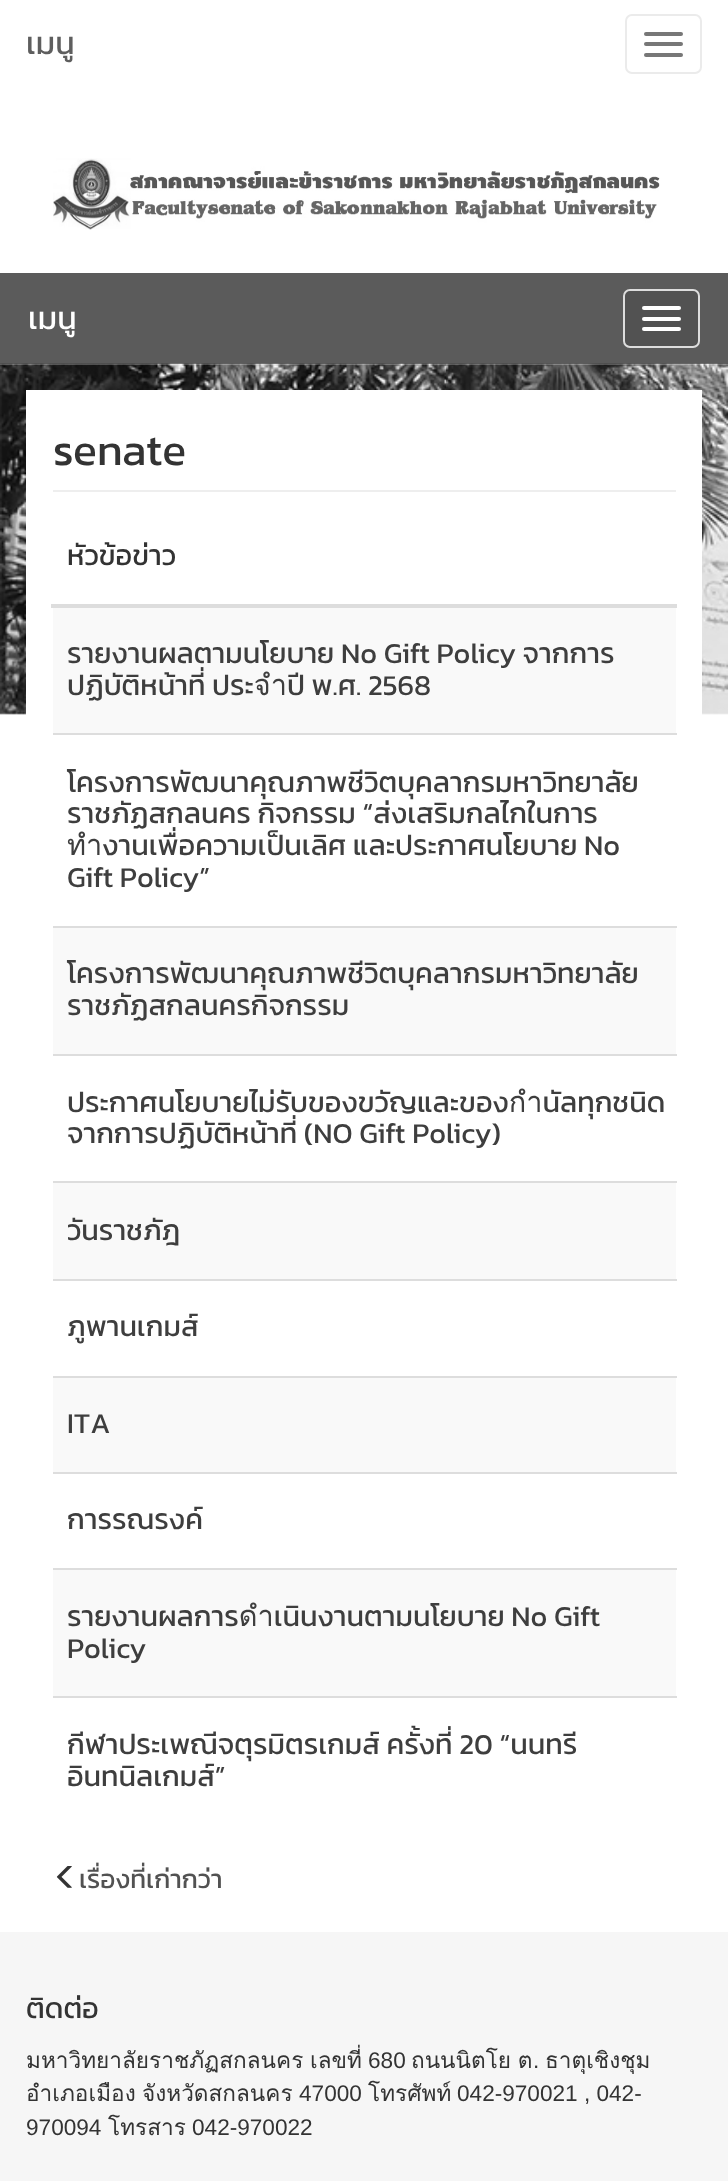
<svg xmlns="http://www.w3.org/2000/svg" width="728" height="2181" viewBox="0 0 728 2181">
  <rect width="100%" height="100%" fill="#ffffff"/>
  <text x="26" y="54" font-family="Kanit" font-size="32" fill="#5e5e5e">เมนู</text>
  <rect x="626" y="15" width="75" height="58" rx="6" fill="none" stroke="#ebebeb" stroke-width="2"/>
  <rect x="644" y="32" width="39" height="4" rx="2" fill="#777777"/>
  <rect x="644" y="42" width="39" height="4" rx="2" fill="#777777"/>
  <rect x="644" y="53" width="39" height="4" rx="2" fill="#777777"/>
  <image x="53" y="158" width="607" height="72" href="img1.png"/>
  <rect x="0" y="273" width="728" height="91" fill="#5b5b5b"/>
  <text x="28" y="329" font-family="Kanit" font-size="32" fill="#ffffff">เมนู</text>
  <rect x="624" y="290" width="75" height="57" rx="6" fill="#525252" stroke="#dddddd" stroke-width="2"/>
  <rect x="642" y="306" width="39" height="4" rx="2" fill="#ffffff"/>
  <rect x="642" y="317" width="39" height="4" rx="2" fill="#ffffff"/>
  <rect x="642" y="327" width="39" height="4" rx="2" fill="#ffffff"/>
  <image x="0" y="363" width="728" height="352" href="img2.png"/>
  <rect x="26" y="390" width="676" height="325" fill="#ffffff"/>
  <rect x="53" y="490" width="623" height="2" fill="#eeeeee"/>
  <text x="53" y="465" font-family="Kanit" font-size="44.5" fill="#333333">senate</text>
  <rect x="51" y="604" width="626" height="4" fill="#dddddd"/>
  <text x="67" y="565" font-family="Kanit" font-size="28.9" fill="#333333">หัวข้อข่าว</text>
  <rect x="53" y="608" width="623" height="125" fill="#f9f9f9"/>
  <text x="67" y="663" font-family="Kanit" font-size="28.9" fill="#3e3e3e">รายงานผลตามนโยบาย No Gift Policy จากการ</text>
  <text x="67" y="695" font-family="Kanit" font-size="28.9" fill="#3e3e3e">ปฏิบัติหน้าที่ ประจำปี พ.ศ. 2568</text>
  <rect x="53" y="733" width="624" height="2" fill="#dddddd"/>
  <text x="67" y="792" font-family="Kanit" font-size="28.9" fill="#3e3e3e">โครงการพัฒนาคุณภาพชีวิตบุคลากรมหาวิทยาลัย</text>
  <text x="67" y="823" font-family="Kanit" font-size="28.9" fill="#3e3e3e">ราชภัฏสกลนคร กิจกรรม “ส่งเสริมกลไกในการ</text>
  <text x="67" y="855" font-family="Kanit" font-size="28.9" fill="#3e3e3e">ทำงานเพื่อความเป็นเลิศ และประกาศนโยบาย No</text>
  <text x="67" y="887" font-family="Kanit" font-size="28.9" fill="#3e3e3e">Gift Policy”</text>
  <rect x="53" y="928" width="623" height="126" fill="#f9f9f9"/>
  <rect x="53" y="926" width="624" height="2" fill="#dddddd"/>
  <text x="67" y="983" font-family="Kanit" font-size="28.9" fill="#3e3e3e">โครงการพัฒนาคุณภาพชีวิตบุคลากรมหาวิทยาลัย</text>
  <text x="67" y="1015" font-family="Kanit" font-size="28.9" fill="#3e3e3e">ราชภัฏสกลนครกิจกรรม</text>
  <rect x="53" y="1054" width="624" height="2" fill="#dddddd"/>
  <text x="67" y="1112" font-family="Kanit" font-size="28.9" fill="#3e3e3e">ประกาศนโยบายไม่รับของขวัญและของกำนัลทุกชนิด</text>
  <text x="67" y="1143" font-family="Kanit" font-size="28.9" fill="#3e3e3e">จากการปฏิบัติหน้าที่ (NO Gift Policy)</text>
  <rect x="53" y="1183" width="623" height="96" fill="#f9f9f9"/>
  <rect x="53" y="1181" width="624" height="2" fill="#dddddd"/>
  <text x="67" y="1240" font-family="Kanit" font-size="28.9" fill="#3e3e3e">วันราชภัฎ</text>
  <rect x="53" y="1279" width="624" height="2" fill="#dddddd"/>
  <text x="67" y="1336" font-family="Kanit" font-size="28.9" fill="#3e3e3e">ภูพานเกมส์</text>
  <rect x="53" y="1378" width="623" height="94" fill="#f9f9f9"/>
  <rect x="53" y="1376" width="624" height="2" fill="#dddddd"/>
  <text x="67" y="1433" font-family="Kanit" font-size="28.9" fill="#3e3e3e">ITA</text>
  <rect x="53" y="1472" width="624" height="2" fill="#dddddd"/>
  <text x="67" y="1529" font-family="Kanit" font-size="28.9" fill="#3e3e3e">การรณรงค์</text>
  <rect x="53" y="1570" width="623" height="126" fill="#f9f9f9"/>
  <rect x="53" y="1568" width="624" height="2" fill="#dddddd"/>
  <text x="67" y="1626" font-family="Kanit" font-size="28.9" fill="#3e3e3e">รายงานผลการดำเนินงานตามนโยบาย No Gift</text>
  <text x="67" y="1658" font-family="Kanit" font-size="28.9" fill="#3e3e3e">Policy</text>
  <rect x="53" y="1696" width="624" height="2" fill="#dddddd"/>
  <text x="67" y="1754" font-family="Kanit" font-size="28.9" fill="#3e3e3e">กีฬาประเพณีจตุรมิตรเกมส์ ครั้งที่ 20 “นนทรี</text>
  <text x="67" y="1786" font-family="Kanit" font-size="28.9" fill="#3e3e3e">อินทนิลเกมส์”</text>
  <image x="56" y="1866" width="16" height="22" href="img3.png"/>
  <text x="79" y="1888" font-family="Kanit" font-size="26.25" fill="#525252">เรื่องที่เก่ากว่า</text>
  <rect x="0" y="1932" width="728" height="249" fill="#f6f6f6"/>
  <text x="26" y="2018" font-family="Kanit" font-size="29" fill="#333333">ติดต่อ</text>
  <text x="26" y="2068" word-spacing="-1" font-family="Loma" font-size="22.6" fill="#333333">มหาวิทยาลัยราชภัฏสกลนคร เลขที่</text>
  <text x="368" y="2068" font-family="Liberation Sans" font-size="22.6" fill="#333333">680</text>
  <text x="411" y="2068" word-spacing="-1" font-family="Loma" font-size="22.6" fill="#333333">ถนนนิตโย ต</text>
  <text x="533" y="2068" font-family="Liberation Sans" font-size="22.6" fill="#333333">.</text>
  <text x="545" y="2068" font-family="Loma" font-size="22.6" fill="#333333">ธาตุเชิงชุม</text>
  <text x="26" y="2101" font-family="Loma" font-size="22.6" fill="#333333">อำเภอเมือง</text>
  <text x="142" y="2101" font-family="Loma" font-size="22.6" fill="#333333">จังหวัดสกลนคร</text>
  <text x="299" y="2101" font-family="Liberation Sans" font-size="22.6" fill="#333333">47000</text>
  <text x="368" y="2101" font-family="Loma" font-size="22.6" fill="#333333">โทรศัพท์</text>
  <text x="457" y="2101" font-family="Liberation Sans" font-size="22.6" fill="#333333">042-970021 , 042-</text>
  <text x="26" y="2135" font-family="Liberation Sans" font-size="22.6" fill="#333333">970094</text>
  <text x="108" y="2135" font-family="Loma" font-size="22.6" fill="#333333">โทรสาร</text>
  <text x="192" y="2135" font-family="Liberation Sans" font-size="22.6" fill="#333333">042-970022</text>
</svg>
